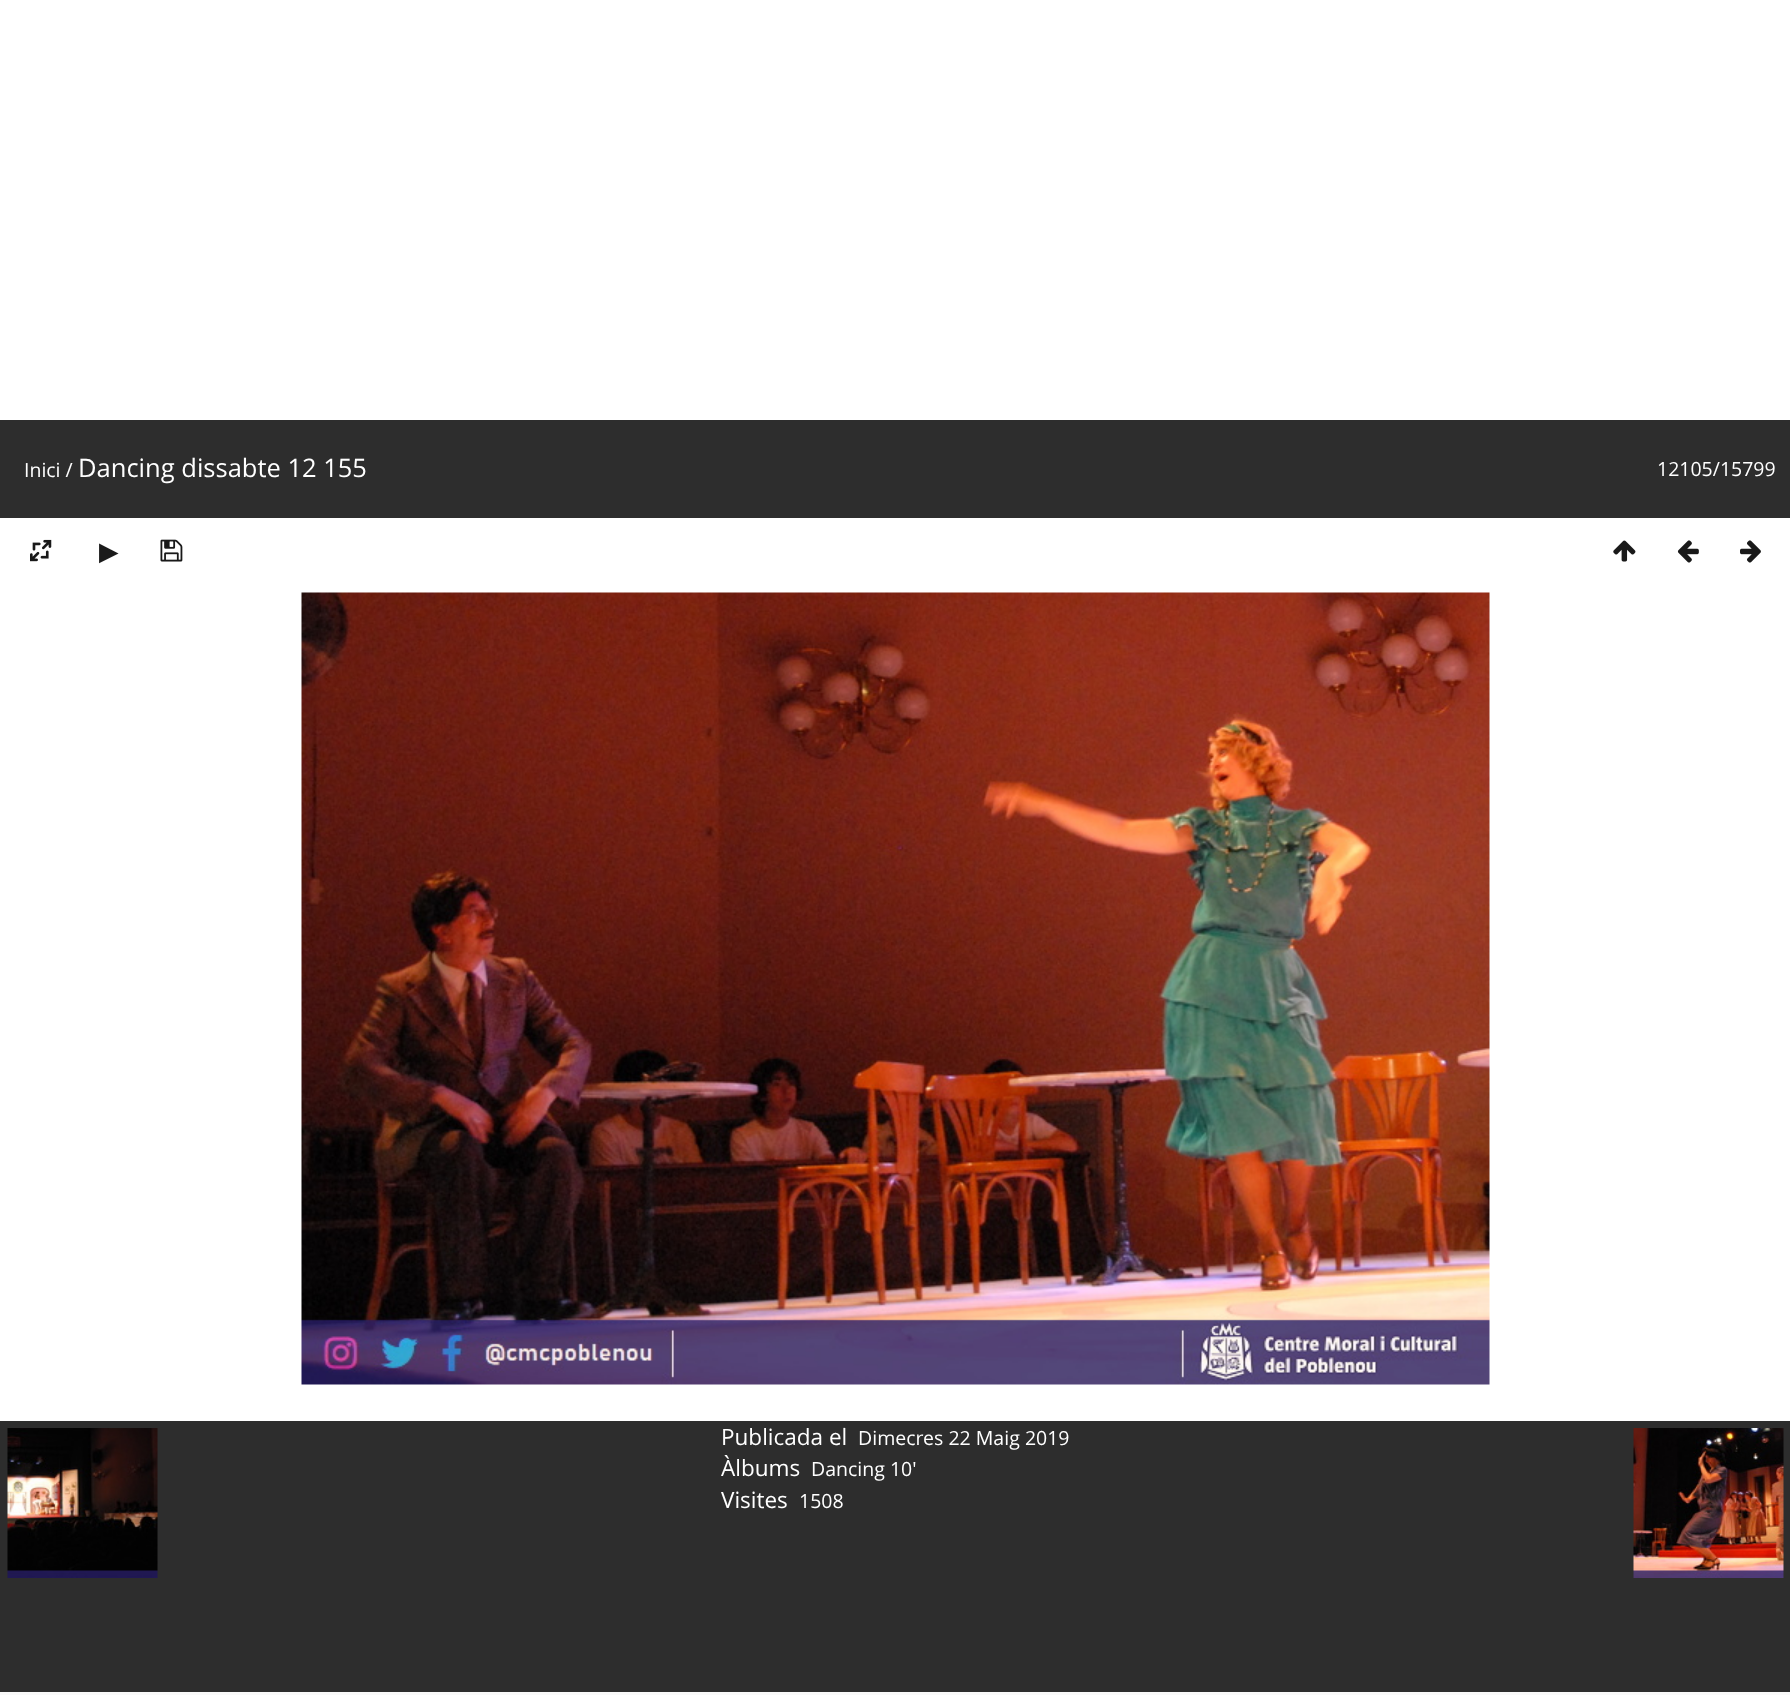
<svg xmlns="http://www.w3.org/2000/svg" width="1790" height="1695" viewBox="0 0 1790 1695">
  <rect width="100%" height="100%" fill="#ffffff"/>
  <rect x="0" y="420" width="1790" height="98" fill="#2d2d2d"/>
  <text x="24" y="477" font-family="Open Sans" font-size="19.5" fill="#ffffff">Inici /</text>
  <text x="78" y="477" font-family="Open Sans" font-size="25.5" fill="#ffffff">Dancing dissabte 12 155</text>
  <text x="1657" y="476" font-family="Open Sans" font-size="19.5" fill="#ffffff">12105/15799</text>
  <image x="30" y="539" width="22" height="23" href="img1.png"/>
  <text x="99" y="560" font-family="DejaVu Sans" font-size="25.5" fill="#1a1a1a">▶</text>
  <image x="160" y="539" width="23" height="23" href="img2.png"/>
  <image x="1613" y="540" width="23" height="22" href="img3.png"/>
  <image x="1677" y="540" width="22" height="23" href="img4.png"/>
  <image x="1740" y="540" width="21" height="23" href="img5.png"/>
  <image x="301" y="592" width="1189" height="793" href="img6.png"/>
  <rect x="0" y="1421" width="1790" height="271" fill="#2d2d2d"/>
  <text x="721" y="1445" font-family="Open Sans" font-size="22.5" fill="#ffffff">Publicada el</text>
  <text x="858" y="1445" font-family="Open Sans" font-size="19.5" fill="#ffffff">Dimecres 22 Maig 2019</text>
  <text x="721" y="1476" font-family="Open Sans" font-size="22.5" fill="#ffffff">Àlbums</text>
  <text x="811" y="1476" font-family="Open Sans" font-size="19.5" fill="#ffffff">Dancing 10'</text>
  <text x="721" y="1508" font-family="Open Sans" font-size="22.5" fill="#ffffff">Visites</text>
  <text x="799" y="1508" font-family="Open Sans" font-size="19.5" fill="#ffffff">1508</text>
  <image x="7" y="1428" width="151" height="150" href="img7.png"/>
  <image x="1633" y="1428" width="151" height="150" href="img8.png"/>
  <rect x="0" y="1692" width="1790" height="3" fill="#f9f9f9"/>
</svg>
